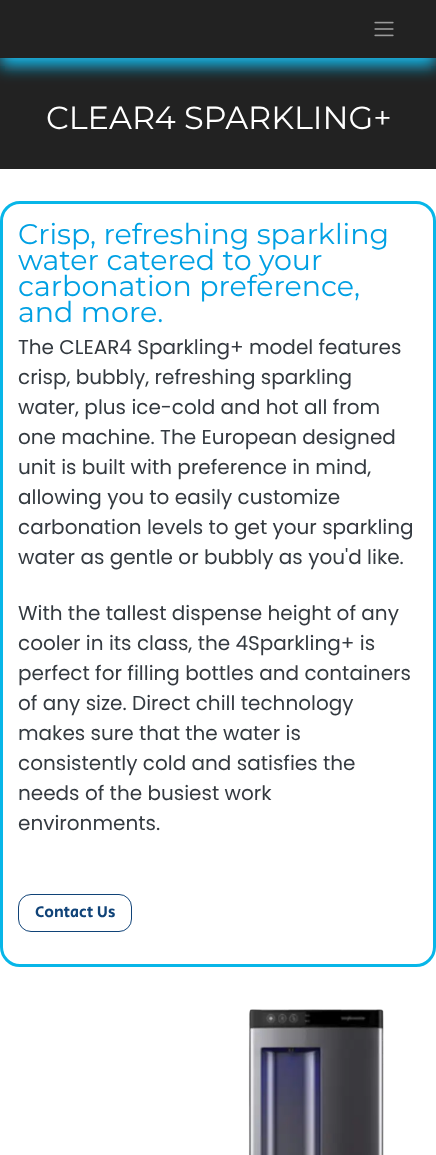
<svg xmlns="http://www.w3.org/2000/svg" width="436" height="1155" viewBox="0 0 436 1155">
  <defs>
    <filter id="blur1" x="-50%" y="-200%" width="200%" height="500%"><feGaussianBlur stdDeviation="8"/></filter>
  </defs>
  <rect width="100%" height="100%" fill="#ffffff"/>
  <rect x="0" y="58" width="436" height="111" fill="#222222"/>
  <rect x="0" y="8" width="436" height="58" fill="#18baec" filter="url(#blur1)"/>
  <rect x="0" y="0" width="436" height="58" fill="#222222"/>
  <image x="374" y="21" width="20" height="16" href="img1.png"/>
  <text x="46" y="129" font-family="Montserrat" font-size="32" fill="#ffffff">CLEAR4 SPARKLING+</text>
  <rect x="1.5" y="202.5" width="433" height="763" rx="18.5" fill="none" stroke="#07b6e8" stroke-width="3"/>
  <text x="18" y="244" font-family="Montserrat" font-size="28.5" fill="#00a0e3">Crisp, refreshing sparkling</text>
  <text x="18" y="270" font-family="Montserrat" font-size="28.5" fill="#00a0e3">water catered to your</text>
  <text x="18" y="296" font-family="Montserrat" font-size="28.5" fill="#00a0e3">carbonation preference,</text>
  <text x="18" y="322" font-family="Montserrat" font-size="28.5" fill="#00a0e3">and more.</text>
  <text x="18" y="354" font-family="Poppins" font-size="20" fill="#343a40">The CLEAR4 Sparkling+ model features</text>
  <text x="18" y="384" font-family="Poppins" font-size="20" fill="#343a40">crisp, bubbly, refreshing sparkling</text>
  <text x="18" y="414" font-family="Poppins" font-size="20" fill="#343a40">water, plus ice-cold and hot all from</text>
  <text x="18" y="444" font-family="Poppins" font-size="20" fill="#343a40">one machine. The European designed</text>
  <text x="18" y="474" font-family="Poppins" font-size="20" fill="#343a40">unit is built with preference in mind,</text>
  <text x="18" y="504" font-family="Poppins" font-size="20" fill="#343a40">allowing you to easily customize</text>
  <text x="18" y="534" font-family="Poppins" font-size="20" fill="#343a40">carbonation levels to get your sparkling</text>
  <text x="18" y="564" font-family="Poppins" font-size="20" fill="#343a40">water as gentle or bubbly as you'd like.</text>
  <text x="18" y="620" font-family="Poppins" font-size="20" fill="#343a40">With the tallest dispense height of any</text>
  <text x="18" y="650" font-family="Poppins" font-size="20" fill="#343a40">cooler in its class, the 4Sparkling+ is</text>
  <text x="18" y="680" font-family="Poppins" font-size="20" fill="#343a40">perfect for filling bottles and containers</text>
  <text x="18" y="710" font-family="Poppins" font-size="20" fill="#343a40">of any size. Direct chill technology</text>
  <text x="18" y="740" font-family="Poppins" font-size="20" fill="#343a40">makes sure that the water is</text>
  <text x="18" y="770" font-family="Poppins" font-size="20" fill="#343a40">consistently cold and satisfies the</text>
  <text x="18" y="800" font-family="Poppins" font-size="20" fill="#343a40">needs of the busiest work</text>
  <text x="18" y="830" font-family="Poppins" font-size="20" fill="#343a40">environments.</text>
  <rect x="18.5" y="894.5" width="113" height="37" rx="12.5" fill="none" stroke="#104378"/>
  <text x="35" y="917" font-family="Secular One" font-size="16" fill="#104378">Contact Us</text>
  <image x="248" y="1009" width="136" height="146" href="img2.png"/>
</svg>
